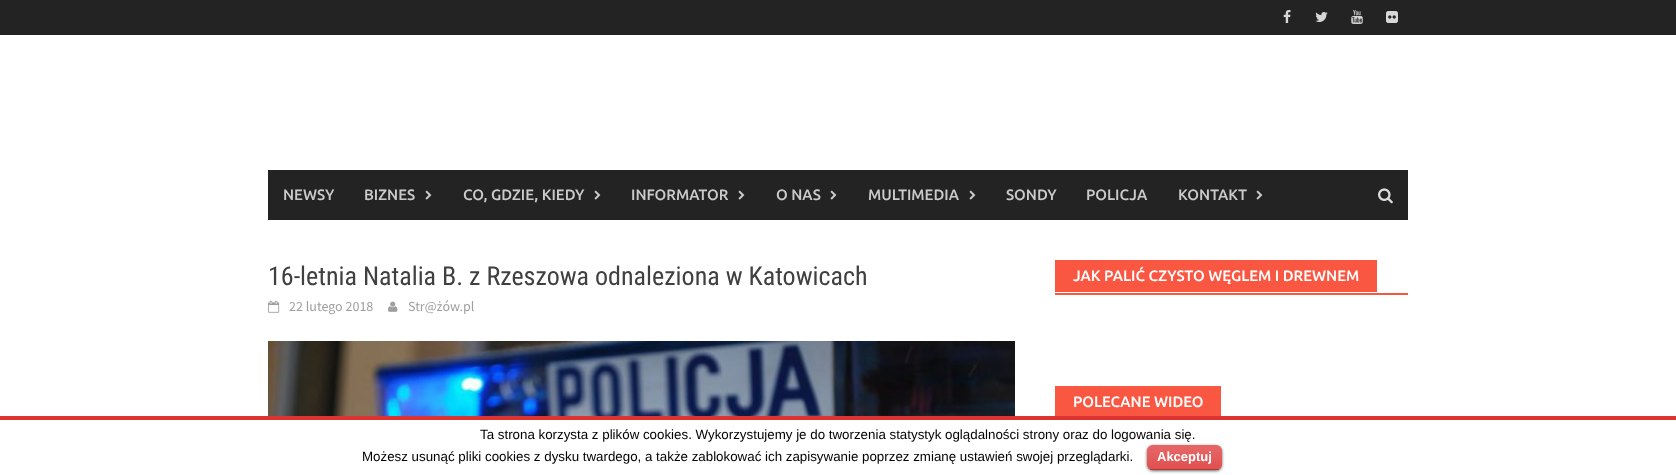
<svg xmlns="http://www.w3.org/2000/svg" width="1676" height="475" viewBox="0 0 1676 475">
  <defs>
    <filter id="blur1" x="-50%" y="-200%" width="200%" height="500%"><feGaussianBlur stdDeviation="1.5"/></filter>
  </defs>
  <rect width="100%" height="100%" fill="#ffffff"/>
  <rect x="0" y="0" width="1676" height="35" fill="#232323"/>
  <image x="1283" y="10" width="8" height="13" href="img1.png"/>
  <image x="1315" y="12" width="13" height="10" href="img2.png"/>
  <image x="1351" y="10" width="12" height="14" href="img3.png"/>
  <image x="1386" y="11" width="12" height="12" href="img4.png"/>
  <rect x="268" y="170" width="1140" height="50" fill="#232323"/>
  <text x="283" y="200" font-family="Ubuntu" font-size="15" font-weight="500" fill="#cacaca">NEWSY</text>
  <text x="364" y="200" font-family="Ubuntu" font-size="15" font-weight="500" fill="#cacaca">BIZNES</text>
  <image x="425" y="190" width="7" height="10" href="img5.png"/>
  <text x="463" y="200" font-family="Ubuntu" font-size="15" font-weight="500" fill="#cacaca">CO, GDZIE, KIEDY</text>
  <image x="594" y="190" width="7" height="10" href="img5.png"/>
  <text x="631" y="200" font-family="Ubuntu" font-size="15" font-weight="500" fill="#cacaca">INFORMATOR</text>
  <image x="738" y="190" width="7" height="10" href="img5.png"/>
  <text x="776" y="200" font-family="Ubuntu" font-size="15" font-weight="500" fill="#cacaca">O NAS</text>
  <image x="830" y="190" width="7" height="10" href="img5.png"/>
  <text x="868" y="200" font-family="Ubuntu" font-size="15" font-weight="500" fill="#cacaca">MULTIMEDIA</text>
  <image x="969" y="190" width="7" height="10" href="img5.png"/>
  <text x="1006" y="200" font-family="Ubuntu" font-size="15" font-weight="500" fill="#cacaca">SONDY</text>
  <text x="1086" y="200" font-family="Ubuntu" font-size="15" font-weight="500" fill="#cacaca">POLICJA</text>
  <text x="1178" y="200" font-family="Ubuntu" font-size="15" font-weight="500" fill="#cacaca">KONTAKT</text>
  <image x="1256" y="190" width="7" height="10" href="img5.png"/>
  <image x="1378" y="188" width="15" height="16" href="img6.png"/>
  <text x="268" y="285" font-family="Roboto Condensed" font-size="26" fill="#404040">16-letnia Natalia B. z Rzeszowa odnaleziona w Katowicach</text>
  <image x="268" y="300" width="12" height="13" href="img7.png"/>
  <text x="289" y="311" font-family="Source Sans Pro" font-size="14" fill="#9f9f9f">22 lutego 2018</text>
  <image x="388" y="301" width="10" height="11" href="img8.png"/>
  <text x="408" y="311" font-family="Source Sans Pro" font-size="14" fill="#9f9f9f">Str@żów.pl</text>
  <image x="268" y="341" width="747" height="75" href="img9.png"/>
  <rect x="1055" y="293" width="353" height="2" fill="#fa5742"/>
  <rect x="1055" y="260" width="322" height="32" fill="#fa5742"/>
  <text x="1073" y="281" font-family="Ubuntu" font-size="15" font-weight="500" fill="#ffffff">JAK PALIĆ CZYSTO WĘGLEM I DREWNEM</text>
  <rect x="1055" y="386" width="166" height="30" fill="#fa5742"/>
  <text x="1073" y="407" font-family="Ubuntu" font-size="15" font-weight="500" fill="#ffffff">POLECANE WIDEO</text>
  <rect x="0" y="416" width="1676" height="4" fill="#dd3333"/>
  <text x="480" y="439" font-family="Liberation Sans" font-size="13.33" fill="#000000">Ta strona korzysta z plików cookies. Wykorzystujemy je do tworzenia statystyk oglądalności strony oraz do logowania się.</text>
  <text x="362" y="461" font-family="Liberation Sans" font-size="13.33" fill="#000000">Możesz usunąć pliki cookies z dysku twardego, a także zablokować ich zapisywanie poprzez zmianę ustawień swojej przeglądarki.</text>
  <rect x="1147" y="446" width="75" height="25" rx="6" fill="#000000" fill-opacity="0.6" filter="url(#blur1)"/>
  <rect x="1147" y="445" width="75" height="25" rx="6" fill="#dd3333"/>
  <image x="1147" y="445" width="75" height="25" href="img10.png"/>
  <rect x="1150" y="469" width="69" height="1" fill="#000000" fill-opacity="0.25"/>
  <text x="1157" y="461" font-family="Liberation Sans" font-size="13" font-weight="bold" fill="#ffffff">Akceptuj</text>
</svg>
